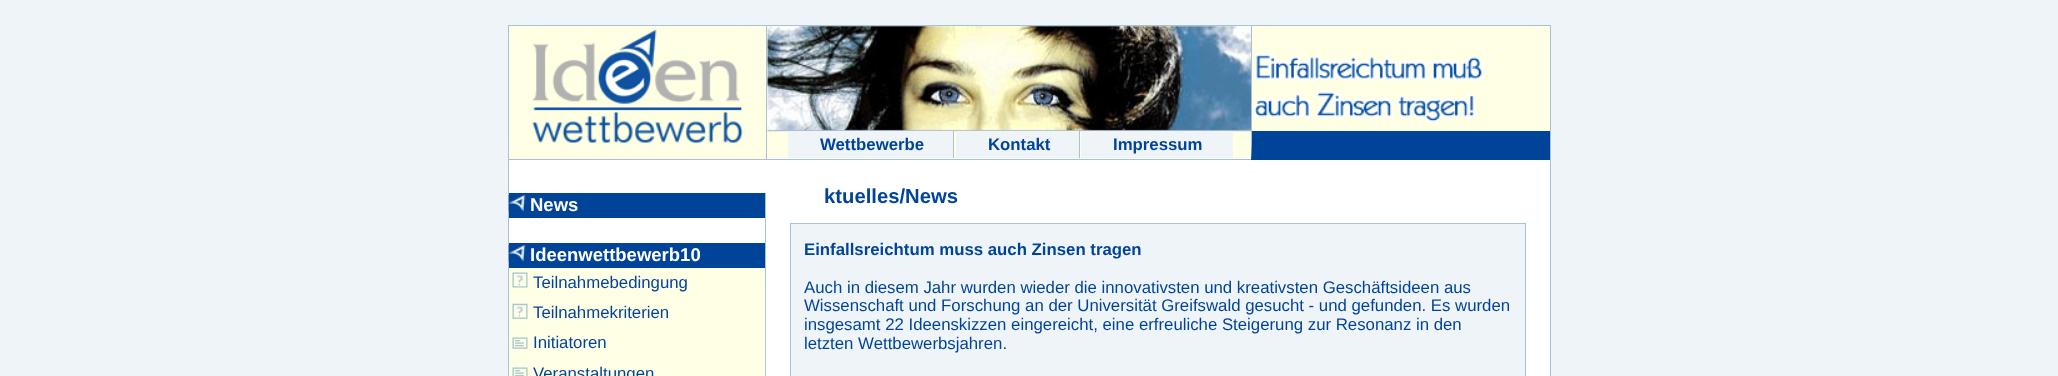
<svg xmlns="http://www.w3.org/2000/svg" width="2058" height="376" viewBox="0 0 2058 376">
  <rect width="100%" height="100%" fill="#eff4f9"/>
  <rect x="509" y="158" width="1041" height="218" fill="#ffffff"/>
  <rect x="508.5" y="25.5" width="1042" height="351" fill="none" stroke="#a4c3d7"/>
  <rect x="768" y="26" width="483" height="132" fill="#ffffe5"/>
  <rect x="509" y="159" width="742" height="1" fill="#a4c3d7"/>
  <rect x="509" y="26" width="259" height="133" fill="#ffffe5"/>
  <image x="532" y="29" width="211" height="114" href="img1.png"/>
  <rect x="766" y="26" width="1" height="133" fill="#a4c3d7"/>
  <image x="767" y="26" width="484" height="106" href="img2.png"/>
  <rect x="788" y="131" width="165" height="27" fill="#eff4f9"/>
  <text x="820" y="150" font-family="Liberation Sans" font-size="16.8" font-weight="bold" fill="#004499">Wettbewerbe</text>
  <rect x="953" y="131" width="1" height="27" fill="#a4c3d7"/>
  <rect x="956" y="131" width="123" height="27" fill="#eff4f9"/>
  <text x="988" y="150" font-family="Liberation Sans" font-size="16.8" font-weight="bold" fill="#004499">Kontakt</text>
  <rect x="1079" y="131" width="1" height="27" fill="#a4c3d7"/>
  <rect x="1081" y="131" width="152" height="27" fill="#eff4f9"/>
  <text x="1113" y="150" font-family="Liberation Sans" font-size="16.8" font-weight="bold" fill="#004499">Impressum</text>
  <rect x="1251" y="26" width="299" height="134" fill="#ffffe5"/>
  <path d="M1550 160H1251L1252 131H1550Z" fill="#004499"/>
  <path d="M1251 160V26H1252V131Z" fill="#a4c3d7"/>
  <image x="1253" y="53" width="231" height="70" href="img3.png"/>
  <rect x="765" y="193" width="1" height="183" fill="#a4c3d7"/>
  <rect x="509" y="193" width="256" height="25" fill="#004499"/>
  <image x="508" y="195" width="18" height="17" href="img4.png"/>
  <text x="530" y="211" font-family="Liberation Sans" font-size="18.5" font-weight="bold" fill="#ffffff">News</text>
  <rect x="509" y="243" width="256" height="25" fill="#004499"/>
  <image x="508" y="245" width="18" height="17" href="img4.png"/>
  <text x="530" y="261" font-family="Liberation Sans" font-size="18.5" font-weight="bold" fill="#ffffff">Ideenwettbewerb10</text>
  <rect x="509" y="268" width="256" height="108" fill="#ffffe5"/>
  <image x="512" y="272" width="16" height="16" href="img5.png"/>
  <text x="533" y="288" font-family="Liberation Sans" font-size="16.8" fill="#004499">Teilnahmebedingung</text>
  <image x="512" y="303" width="16" height="16" href="img6.png"/>
  <text x="533" y="318" font-family="Liberation Sans" font-size="16.8" fill="#004499">Teilnahmekriterien</text>
  <image x="512" y="337" width="16" height="12" href="img7.png"/>
  <text x="533" y="348" font-family="Liberation Sans" font-size="16.8" fill="#004499">Initiatoren</text>
  <image x="512" y="367" width="16" height="9" href="img8.png"/>
  <text x="533" y="379" font-family="Liberation Sans" font-size="16.8" fill="#004499">Veranstaltungen</text>
  <text x="824" y="203" font-family="Liberation Sans" font-size="20.25" font-weight="bold" fill="#004499">ktuelles/News</text>
  <rect x="790.5" y="223.5" width="735" height="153" fill="#eff4f9" stroke="#a4c3d7"/>
  <text x="804" y="255" font-family="Liberation Sans" font-size="16.8" font-weight="bold" fill="#004499">Einfallsreichtum muss auch Zinsen tragen</text>
  <text x="804" y="293" font-family="Liberation Sans" font-size="16.8" fill="#004499">Auch in diesem Jahr wurden wieder die innovativsten und kreativsten Geschäftsideen aus</text>
  <text x="804" y="311" font-family="Liberation Sans" font-size="16.8" fill="#004499">Wissenschaft und Forschung an der Universität Greifswald gesucht - und gefunden. Es wurden</text>
  <text x="804" y="330" font-family="Liberation Sans" font-size="16.8" fill="#004499">insgesamt 22 Ideenskizzen eingereicht, eine erfreuliche Steigerung zur Resonanz in den</text>
  <text x="804" y="349" font-family="Liberation Sans" font-size="16.8" fill="#004499">letzten Wettbewerbsjahren.</text>
  <rect x="1708" y="166" width="1" height="1" fill="#ffffff"/>
</svg>
